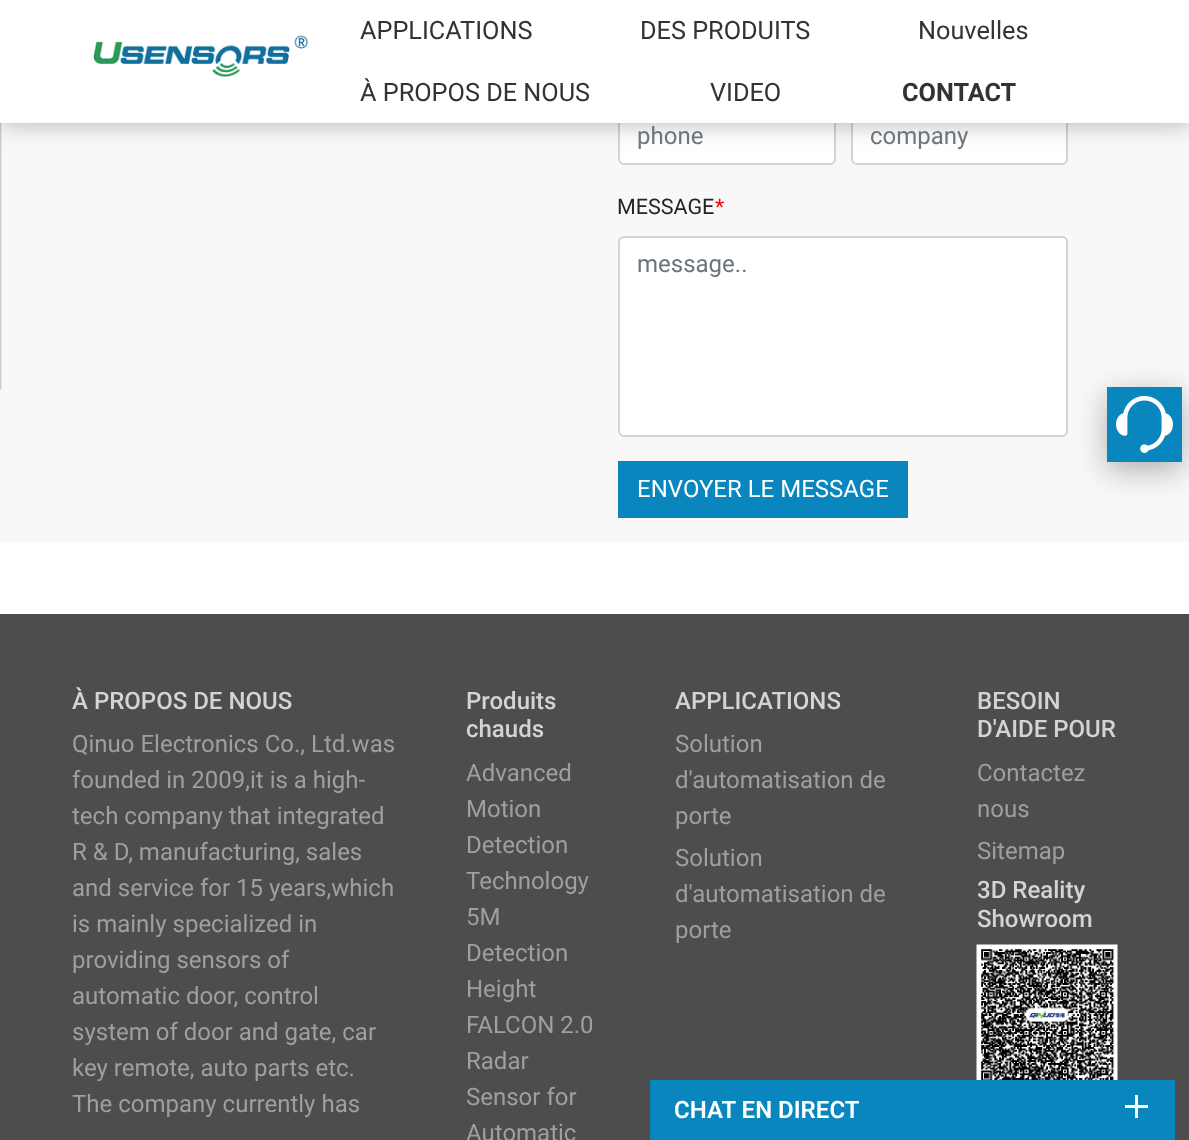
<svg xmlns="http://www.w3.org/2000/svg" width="1189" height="1140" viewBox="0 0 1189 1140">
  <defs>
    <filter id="blur1" x="-50%" y="-200%" width="200%" height="500%"><feGaussianBlur stdDeviation="12"/></filter>
    <filter id="blur2" x="-50%" y="-200%" width="200%" height="500%"><feGaussianBlur stdDeviation="15"/></filter>
  </defs>
  <rect width="100%" height="100%" fill="#ffffff"/>
  <rect x="0" y="123" width="1189" height="419" fill="#f8f8f8"/>
  <image x="0" y="123" width="2" height="267" href="img2.png"/>
  <rect x="619" y="109" width="216" height="55" rx="5" fill="#ffffff" stroke="#ced4da" stroke-width="2"/>
  <rect x="852" y="109" width="215" height="55" rx="5" fill="#ffffff" stroke="#ced4da" stroke-width="2"/>
  <rect x="0" y="0" width="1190" height="123" fill="#000000" fill-opacity="0.3" filter="url(#blur1)"/>
  <rect x="0" y="0" width="1189" height="123" fill="#ffffff"/>
  <image x="93" y="35" width="216" height="42" href="img1.png"/>
  <text x="360" y="39" font-family="Roboto" font-size="25.25" fill="#333333">APPLICATIONS</text>
  <text x="640" y="39" font-family="Roboto" font-size="25.25" fill="#333333">DES PRODUITS</text>
  <text x="918" y="39" font-family="Roboto" font-size="25.25" fill="#333333">Nouvelles</text>
  <text x="360" y="101" font-family="Roboto" font-size="25.25" fill="#333333">À PROPOS DE NOUS</text>
  <text x="710" y="101" font-family="Roboto" font-size="25.25" fill="#333333">VIDEO</text>
  <text x="902" y="101" font-family="Roboto" font-size="25.25" font-weight="bold" fill="#333333">CONTACT</text>
  <text x="637" y="144" font-family="Roboto" font-size="24" fill="#6c757d">phone</text>
  <text x="870" y="144" font-family="Roboto" font-size="24" fill="#6c757d">company</text>
  <text x="617" y="214" font-family="Roboto" font-size="21.5" fill="#212529">MESSAGE</text>
  <text x="715" y="214" font-family="Roboto" font-size="21.5" fill="#ff0000">*</text>
  <rect x="619" y="237" width="448" height="199" rx="5" fill="#ffffff" stroke="#ced4da" stroke-width="2"/>
  <text x="637" y="272" font-family="Roboto" font-size="24" fill="#6c757d">message..</text>
  <rect x="618" y="461" width="290" height="57" fill="#0a86bf"/>
  <text x="637" y="497" font-family="Roboto" font-size="24" fill="#ffffff">ENVOYER LE MESSAGE</text>
  <rect x="1107" y="395" width="75" height="75" fill="#000000" fill-opacity="0.3" filter="url(#blur2)"/>
  <rect x="1107" y="387" width="75" height="75" fill="#0a86bf"/>
  <image x="1116" y="396" width="57" height="57" href="img3.png"/>
  <rect x="0" y="614" width="1189" height="526" fill="#4d4d4d"/>
  <text x="72" y="709" font-family="Roboto" font-size="24" font-weight="500" fill="#d4d4d4">À PROPOS DE NOUS</text>
  <text x="72" y="752" font-family="Roboto" font-size="24" fill="#9f9f9f">Qinuo Electronics Co., Ltd.was</text>
  <text x="72" y="788" font-family="Roboto" font-size="24" fill="#9f9f9f">founded in 2009,it is a high-</text>
  <text x="72" y="824" font-family="Roboto" font-size="24" fill="#9f9f9f">tech company that integrated</text>
  <text x="72" y="860" font-family="Roboto" font-size="24" fill="#9f9f9f">R &amp; D, manufacturing, sales</text>
  <text x="72" y="896" font-family="Roboto" font-size="24" fill="#9f9f9f">and service for 15 years,which</text>
  <text x="72" y="932" font-family="Roboto" font-size="24" fill="#9f9f9f">is mainly specialized in</text>
  <text x="72" y="968" font-family="Roboto" font-size="24" fill="#9f9f9f">providing sensors of</text>
  <text x="72" y="1004" font-family="Roboto" font-size="24" fill="#9f9f9f">automatic door, control</text>
  <text x="72" y="1040" font-family="Roboto" font-size="24" fill="#9f9f9f">system of door and gate, car</text>
  <text x="72" y="1076" font-family="Roboto" font-size="24" fill="#9f9f9f">key remote, auto parts etc.</text>
  <text x="72" y="1112" font-family="Roboto" font-size="24" fill="#9f9f9f">The company currently has</text>
  <text x="466" y="709" font-family="Roboto" font-size="24" font-weight="500" fill="#d4d4d4">Produits</text>
  <text x="466" y="737" font-family="Roboto" font-size="24" font-weight="500" fill="#d4d4d4">chauds</text>
  <text x="466" y="781" font-family="Roboto" font-size="24" fill="#9f9f9f">Advanced</text>
  <text x="466" y="817" font-family="Roboto" font-size="24" fill="#9f9f9f">Motion</text>
  <text x="466" y="853" font-family="Roboto" font-size="24" fill="#9f9f9f">Detection</text>
  <text x="466" y="889" font-family="Roboto" font-size="24" fill="#9f9f9f">Technology</text>
  <text x="466" y="925" font-family="Roboto" font-size="24" fill="#9f9f9f">5M</text>
  <text x="466" y="961" font-family="Roboto" font-size="24" fill="#9f9f9f">Detection</text>
  <text x="466" y="997" font-family="Roboto" font-size="24" fill="#9f9f9f">Height</text>
  <text x="466" y="1033" font-family="Roboto" font-size="24" fill="#9f9f9f">FALCON 2.0</text>
  <text x="466" y="1069" font-family="Roboto" font-size="24" fill="#9f9f9f">Radar</text>
  <text x="466" y="1105" font-family="Roboto" font-size="24" fill="#9f9f9f">Sensor for</text>
  <text x="466" y="1141" font-family="Roboto" font-size="24" fill="#9f9f9f">Automatic</text>
  <text x="675" y="709" font-family="Roboto" font-size="24" font-weight="500" fill="#d4d4d4">APPLICATIONS</text>
  <text x="675" y="752" font-family="Roboto" font-size="24" fill="#9f9f9f">Solution</text>
  <text x="675" y="788" font-family="Roboto" font-size="24" fill="#9f9f9f">d'automatisation de</text>
  <text x="675" y="824" font-family="Roboto" font-size="24" fill="#9f9f9f">porte</text>
  <text x="675" y="866" font-family="Roboto" font-size="24" fill="#9f9f9f">Solution</text>
  <text x="675" y="902" font-family="Roboto" font-size="24" fill="#9f9f9f">d'automatisation de</text>
  <text x="675" y="938" font-family="Roboto" font-size="24" fill="#9f9f9f">porte</text>
  <text x="977" y="709" font-family="Roboto" font-size="24" font-weight="500" fill="#d4d4d4">BESOIN</text>
  <text x="977" y="737" font-family="Roboto" font-size="24" font-weight="500" fill="#d4d4d4">D'AIDE POUR</text>
  <text x="977" y="781" font-family="Roboto" font-size="24" fill="#9f9f9f">Contactez</text>
  <text x="977" y="817" font-family="Roboto" font-size="24" fill="#9f9f9f">nous</text>
  <text x="977" y="859" font-family="Roboto" font-size="24" fill="#9f9f9f">Sitemap</text>
  <text x="977" y="898" font-family="Roboto" font-size="24" font-weight="500" fill="#d4d4d4">3D Reality</text>
  <text x="977" y="927" font-family="Roboto" font-size="24" font-weight="500" fill="#d4d4d4">Showroom</text>
  <image x="976" y="944" width="142" height="136" href="img4.png"/>
  <rect x="650" y="1080" width="525" height="60" fill="#0a86bf"/>
  <text x="674" y="1118" font-family="Roboto" font-size="24" font-weight="600" fill="#ffffff">CHAT EN DIRECT</text>
  <rect x="1125" y="1105" width="23" height="3" fill="#ffffff"/>
  <rect x="1135" y="1095" width="3" height="23" fill="#ffffff"/>
</svg>
